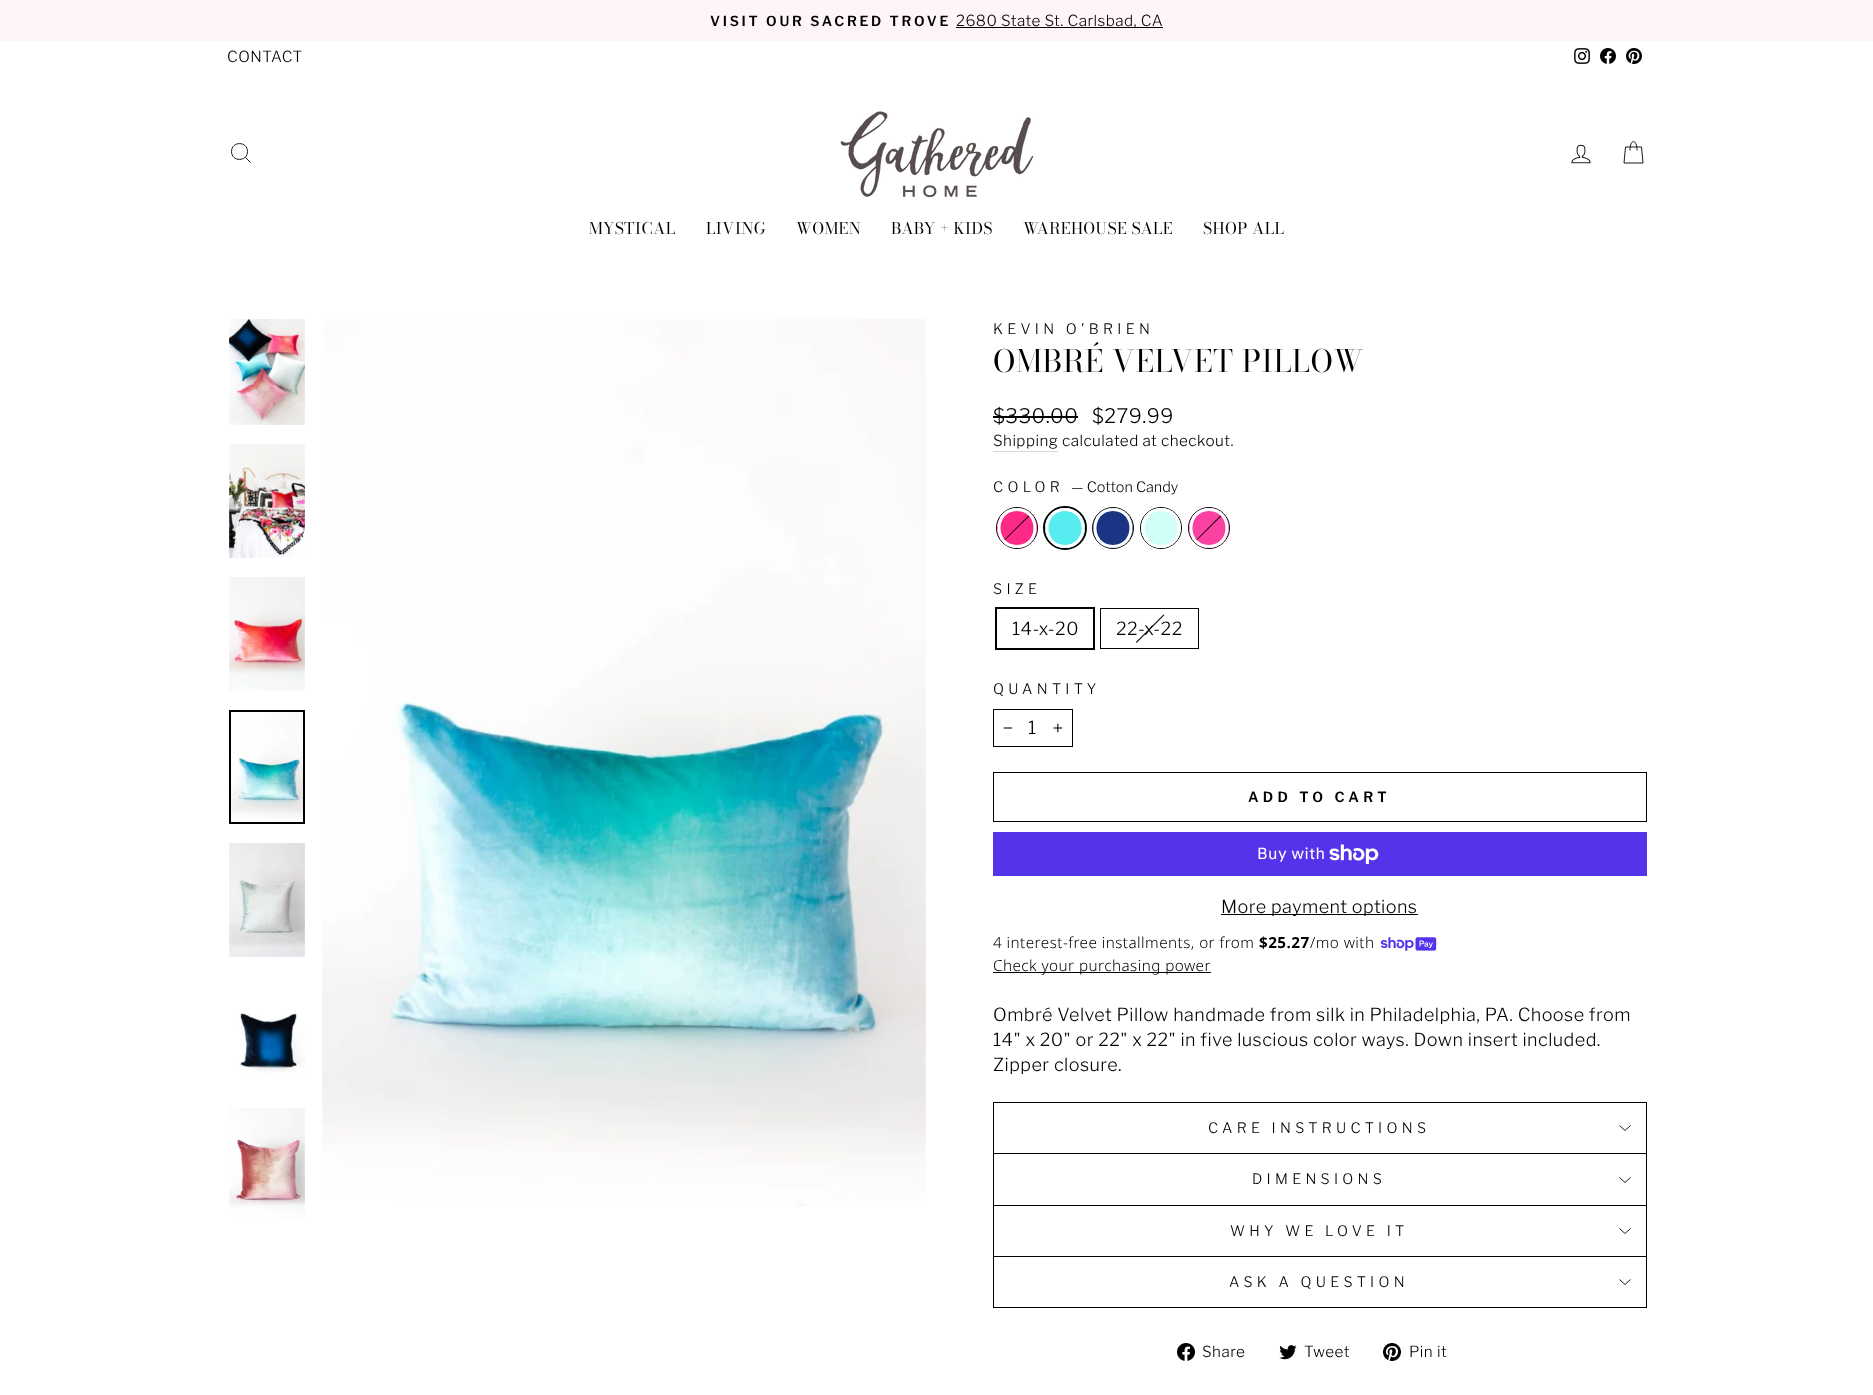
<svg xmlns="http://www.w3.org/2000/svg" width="1873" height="1395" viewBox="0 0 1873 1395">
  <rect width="100%" height="100%" fill="#ffffff"/>
  <rect x="0" y="0" width="1873" height="41" fill="#fff5f6"/>
  <text x="710" y="26" font-family="Libre Franklin" font-size="13.75" font-weight="600" letter-spacing="2.75" fill="#000000">VISIT OUR SACRED TROVE</text>
  <rect x="956" y="27" width="207" height="1" fill="#000000"/>
  <text x="956" y="26" font-family="Libre Franklin" font-size="15.25" font-weight="300" letter-spacing="0.45" fill="#000000">2680 State St. Carlsbad, CA</text>
  <text x="227" y="62" font-family="Libre Franklin" font-size="15.25" font-weight="300" letter-spacing="0.45" fill="#000000">CONTACT</text>
  <image x="1574" y="48" width="16" height="16" href="img1.png"/>
  <image x="1600" y="48" width="16" height="16" href="img2.png"/>
  <image x="1626" y="48" width="16" height="16" href="img3.png"/>
  <path d="M247.5 151.5C247.5 162 231.5 162 231.5 151.5C231.5 141 247.5 141 247.5 151.5ZM250.5 162.5L245.5 157.5" fill="none" stroke="#000000" stroke-width="0.9"/>
  <image x="840" y="111" width="194" height="87" href="img4.png"/>
  <image x="1571" y="144" width="20" height="20" href="img5.png"/>
  <path d="M1630 150.5C1630 138.5 1637 138.5 1637 150.5M1625.5 147H1641.5L1643 163H1624Z" fill="none" stroke="#000000" stroke-width="0.9"/>
  <text x="589" y="234" font-family="'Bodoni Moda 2'" font-size="16" letter-spacing="0.4" fill="#000000">MYSTICAL</text>
  <text x="706" y="234" font-family="'Bodoni Moda 2'" font-size="16" letter-spacing="0.4" fill="#000000">LIVING</text>
  <text x="796" y="234" font-family="'Bodoni Moda 2'" font-size="16" letter-spacing="0.4" fill="#000000">WOMEN</text>
  <text x="891" y="234" font-family="'Bodoni Moda 2'" font-size="16" letter-spacing="0.4" fill="#000000">BABY + KIDS</text>
  <text x="1023" y="234" font-family="'Bodoni Moda 2'" font-size="16" letter-spacing="0.4" fill="#000000">WAREHOUSE SALE</text>
  <text x="1203" y="234" font-family="'Bodoni Moda 2'" font-size="16" letter-spacing="0.4" fill="#000000">SHOP ALL</text>
  <image x="229" y="319" width="76" height="106" href="img6.png"/>
  <image x="229" y="444" width="76" height="114" href="img7.png"/>
  <image x="229" y="577" width="76" height="114" href="img8.png"/>
  <image x="231" y="712" width="72" height="109" href="img9.png"/>
  <rect x="230" y="711" width="74" height="112" fill="none" stroke="#000000" stroke-width="2"/>
  <image x="229" y="843" width="76" height="114" href="img10.png"/>
  <image x="239" y="1012" width="66" height="61" href="img11.png"/>
  <image x="229" y="1108" width="76" height="112" href="img12.png"/>
  <image x="322" y="319" width="604" height="888" href="img13.png"/>
  <text x="993" y="334" font-family="Libre Franklin" font-size="14.4" font-weight="300" letter-spacing="4.3" fill="#000000">KEVIN O'BRIEN</text>
  <text x="993" y="372" font-family="Bodoni Moda" font-size="30.6" letter-spacing="0.75" fill="#000000">OMBRÉ VELVET PILLOW</text>
  <text x="993" y="423" font-family="Libre Franklin" font-size="20" font-weight="300" letter-spacing="0.45" fill="#000000">$330.00</text>
  <rect x="993" y="416" width="85" height="2" fill="#000000"/>
  <text x="1092" y="423" font-family="Libre Franklin" font-size="20" font-weight="300" letter-spacing="0.45" fill="#000000">$279.99</text>
  <rect x="993" y="451" width="65" height="1" fill="#d9d9d9"/>
  <text x="993" y="446" font-family="Libre Franklin" font-size="15.25" font-weight="300" letter-spacing="0.45" fill="#000000">Shipping</text>
  <text x="1062" y="446" font-family="Libre Franklin" font-size="15.25" font-weight="300" letter-spacing="0.45" fill="#000000">calculated at checkout.</text>
  <text x="993" y="492" font-family="Libre Franklin" font-size="14.4" font-weight="300" letter-spacing="4.3" fill="#000000">COLOR</text>
  <text x="1071" y="492" font-family="Libre Franklin" font-size="14.4" font-weight="300" fill="#000000">— Cotton Candy</text>
  <circle cx="1017" cy="528" r="20.5" fill="none" stroke="#000000"/>
  <image x="997" y="508" width="40" height="40" href="img14.png"/>
  <path d="M1030.5 513.5L1031.5 514L1003 542L1002.5 541.5Z" fill="#000000"/>
  <path d="M1017 508C991 508 991 548 1017 548C1043 548 1043 508 1017 508ZM1017 511C995 511 995 545 1017 545C1039 545 1039 511 1017 511Z" fill="#ffffff" fill-rule="evenodd"/>
  <circle cx="1065" cy="528" r="21" fill="none" stroke="#000000" stroke-width="2"/>
  <image x="1045" y="508" width="40" height="40" href="img15.png"/>
  <path d="M1065 508C1039 508 1039 548 1065 548C1091 548 1091 508 1065 508ZM1065 511C1043 511 1043 545 1065 545C1087 545 1087 511 1065 511Z" fill="#ffffff" fill-rule="evenodd"/>
  <circle cx="1113" cy="528" r="20.5" fill="none" stroke="#000000"/>
  <image x="1093" y="508" width="40" height="40" href="img16.png"/>
  <path d="M1113 508C1087 508 1087 548 1113 548C1139 548 1139 508 1113 508ZM1113 511C1091 511 1091 545 1113 545C1135 545 1135 511 1113 511Z" fill="#ffffff" fill-rule="evenodd"/>
  <circle cx="1161" cy="528" r="20.5" fill="none" stroke="#000000"/>
  <image x="1141" y="508" width="40" height="40" href="img17.png"/>
  <path d="M1161 508C1135 508 1135 548 1161 548C1187 548 1187 508 1161 508ZM1161 511C1139 511 1139 545 1161 545C1183 545 1183 511 1161 511Z" fill="#ffffff" fill-rule="evenodd"/>
  <circle cx="1209" cy="528" r="20.5" fill="none" stroke="#000000"/>
  <image x="1189" y="508" width="40" height="40" href="img18.png"/>
  <path d="M1222.5 513.5L1223.5 514L1195 542L1194.5 541.5Z" fill="#000000"/>
  <path d="M1209 508C1183 508 1183 548 1209 548C1235 548 1235 508 1209 508ZM1209 511C1187 511 1187 545 1209 545C1231 545 1231 511 1209 511Z" fill="#ffffff" fill-rule="evenodd"/>
  <text x="993" y="594" font-family="Libre Franklin" font-size="14.4" font-weight="300" letter-spacing="4.3" fill="#000000">SIZE</text>
  <rect x="996" y="608" width="98" height="41" fill="none" stroke="#000000" stroke-width="2"/>
  <text x="1012" y="635" font-family="Libre Franklin" font-size="18" font-weight="300" letter-spacing="0.45" fill="#000000">14-x-20</text>
  <rect x="1100.5" y="608.5" width="98" height="40" fill="none" stroke="#000000"/>
  <path d="M1163.5 614.5L1164.5 615L1136.5 643L1136 642Z" fill="#000000"/>
  <text x="1116" y="635" font-family="Libre Franklin" font-size="18" font-weight="300" letter-spacing="0.45" fill="#000000">22-x-22</text>
  <text x="993" y="694" font-family="Libre Franklin" font-size="14.4" font-weight="300" letter-spacing="4.3" fill="#000000">QUANTITY</text>
  <rect x="993.5" y="709.5" width="79" height="37" fill="none" stroke="#000000"/>
  <image x="1003" y="727" width="10" height="2" href="img19.png"/>
  <text x="1028" y="734" font-family="Libre Franklin" font-size="18" font-weight="300" letter-spacing="0.45" fill="#000000">1</text>
  <image x="1053" y="723" width="10" height="10" href="img20.png"/>
  <rect x="993.5" y="772.5" width="653" height="49" fill="none" stroke="#000000"/>
  <text x="1248" y="802" font-family="Libre Franklin" font-size="14" font-weight="600" letter-spacing="4.25" fill="#000000">ADD TO CART</text>
  <rect x="993" y="832" width="654" height="44" fill="#5433eb"/>
  <text x="1257" y="859" font-family="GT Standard" font-size="16" letter-spacing="0.45" fill="#ffffff">Buy with</text>
  <image x="1329" y="844" width="50" height="20" href="img21.png"/>
  <rect x="1221" y="914" width="197" height="1" fill="#000000"/>
  <text x="1221" y="913" font-family="Libre Franklin" font-size="18" font-weight="300" letter-spacing="0.45" fill="#000000">More payment options</text>
  <text x="993" y="948" font-family="Noto Sans" font-size="15.25" font-weight="300" letter-spacing="0.45" fill="#000000">4 interest-free installments, or from</text>
  <text x="1259" y="948" font-family="Noto Sans" font-size="15.25" font-weight="bold" letter-spacing="0.45" fill="#000000">$25.27</text>
  <text x="1310" y="948" font-family="Noto Sans" font-size="15.25" font-weight="300" letter-spacing="0.45" fill="#000000">/mo with</text>
  <image x="1380" y="937" width="57" height="14" href="img22.png"/>
  <rect x="993" y="972" width="218" height="1" fill="#000000"/>
  <text x="993" y="971" font-family="Noto Sans" font-size="15.25" font-weight="300" letter-spacing="0.45" fill="#000000">Check your purchasing power</text>
  <text x="993" y="1021" font-family="Libre Franklin" font-size="18" font-weight="300" letter-spacing="0.45" fill="#000000">Ombré Velvet Pillow handmade from silk in Philadelphia, PA. Choose from</text>
  <text x="993" y="1046" font-family="Libre Franklin" font-size="18" font-weight="300" letter-spacing="0.45" fill="#000000">14" x 20" or 22" x 22" in five luscious color ways. Down insert included.</text>
  <text x="993" y="1071" font-family="Libre Franklin" font-size="18" font-weight="300" letter-spacing="0.45" fill="#000000">Zipper closure.</text>
  <rect x="993" y="1153" width="654" height="1" fill="#000000"/>
  <rect x="993" y="1102" width="654" height="1" fill="#000000"/>
  <rect x="1646" y="1102" width="1" height="51" fill="#000000"/>
  <rect x="993" y="1102" width="1" height="51" fill="#000000"/>
  <text x="1208" y="1133" font-family="Libre Franklin" font-size="14.4" font-weight="300" letter-spacing="4.3" fill="#000000">CARE INSTRUCTIONS</text>
  <path d="M1619.5 1125.5L1625 1130.5L1630.5 1125.5" fill="none" stroke="#000000" stroke-width="0.9"/>
  <rect x="993" y="1205" width="654" height="1" fill="#000000"/>
  <rect x="1646" y="1154" width="1" height="51" fill="#000000"/>
  <rect x="993" y="1154" width="1" height="51" fill="#000000"/>
  <text x="1252" y="1184" font-family="Libre Franklin" font-size="14.4" font-weight="300" letter-spacing="4.3" fill="#000000">DIMENSIONS</text>
  <path d="M1619.5 1177.5L1625 1182.5L1630.5 1177.5" fill="none" stroke="#000000" stroke-width="0.9"/>
  <rect x="993" y="1256" width="654" height="1" fill="#000000"/>
  <rect x="1646" y="1206" width="1" height="50" fill="#000000"/>
  <rect x="993" y="1206" width="1" height="50" fill="#000000"/>
  <text x="1230" y="1236" font-family="Libre Franklin" font-size="14.4" font-weight="300" letter-spacing="4.3" fill="#000000">WHY WE LOVE IT</text>
  <path d="M1619.5 1228.5L1625 1233.5L1630.5 1228.5" fill="none" stroke="#000000" stroke-width="0.9"/>
  <rect x="993" y="1307" width="654" height="1" fill="#000000"/>
  <rect x="1646" y="1257" width="1" height="50" fill="#000000"/>
  <rect x="993" y="1257" width="1" height="50" fill="#000000"/>
  <text x="1229" y="1287" font-family="Libre Franklin" font-size="14.4" font-weight="300" letter-spacing="4.3" fill="#000000">ASK A QUESTION</text>
  <path d="M1619.5 1279.5L1625 1284.5L1630.5 1279.5" fill="none" stroke="#000000" stroke-width="0.9"/>
  <image x="1177" y="1343" width="18" height="18" href="img23.png"/>
  <text x="1202" y="1357" font-family="Libre Franklin" font-size="15.25" font-weight="300" letter-spacing="0.45" fill="#000000">Share</text>
  <image x="1279" y="1345" width="18" height="15" href="img24.png"/>
  <text x="1304" y="1357" font-family="Libre Franklin" font-size="15.25" font-weight="300" letter-spacing="0.45" fill="#000000">Tweet</text>
  <image x="1383" y="1343" width="18" height="18" href="img25.png"/>
  <text x="1409" y="1357" font-family="Libre Franklin" font-size="15.25" font-weight="300" letter-spacing="0.45" fill="#000000">Pin it</text>
</svg>
